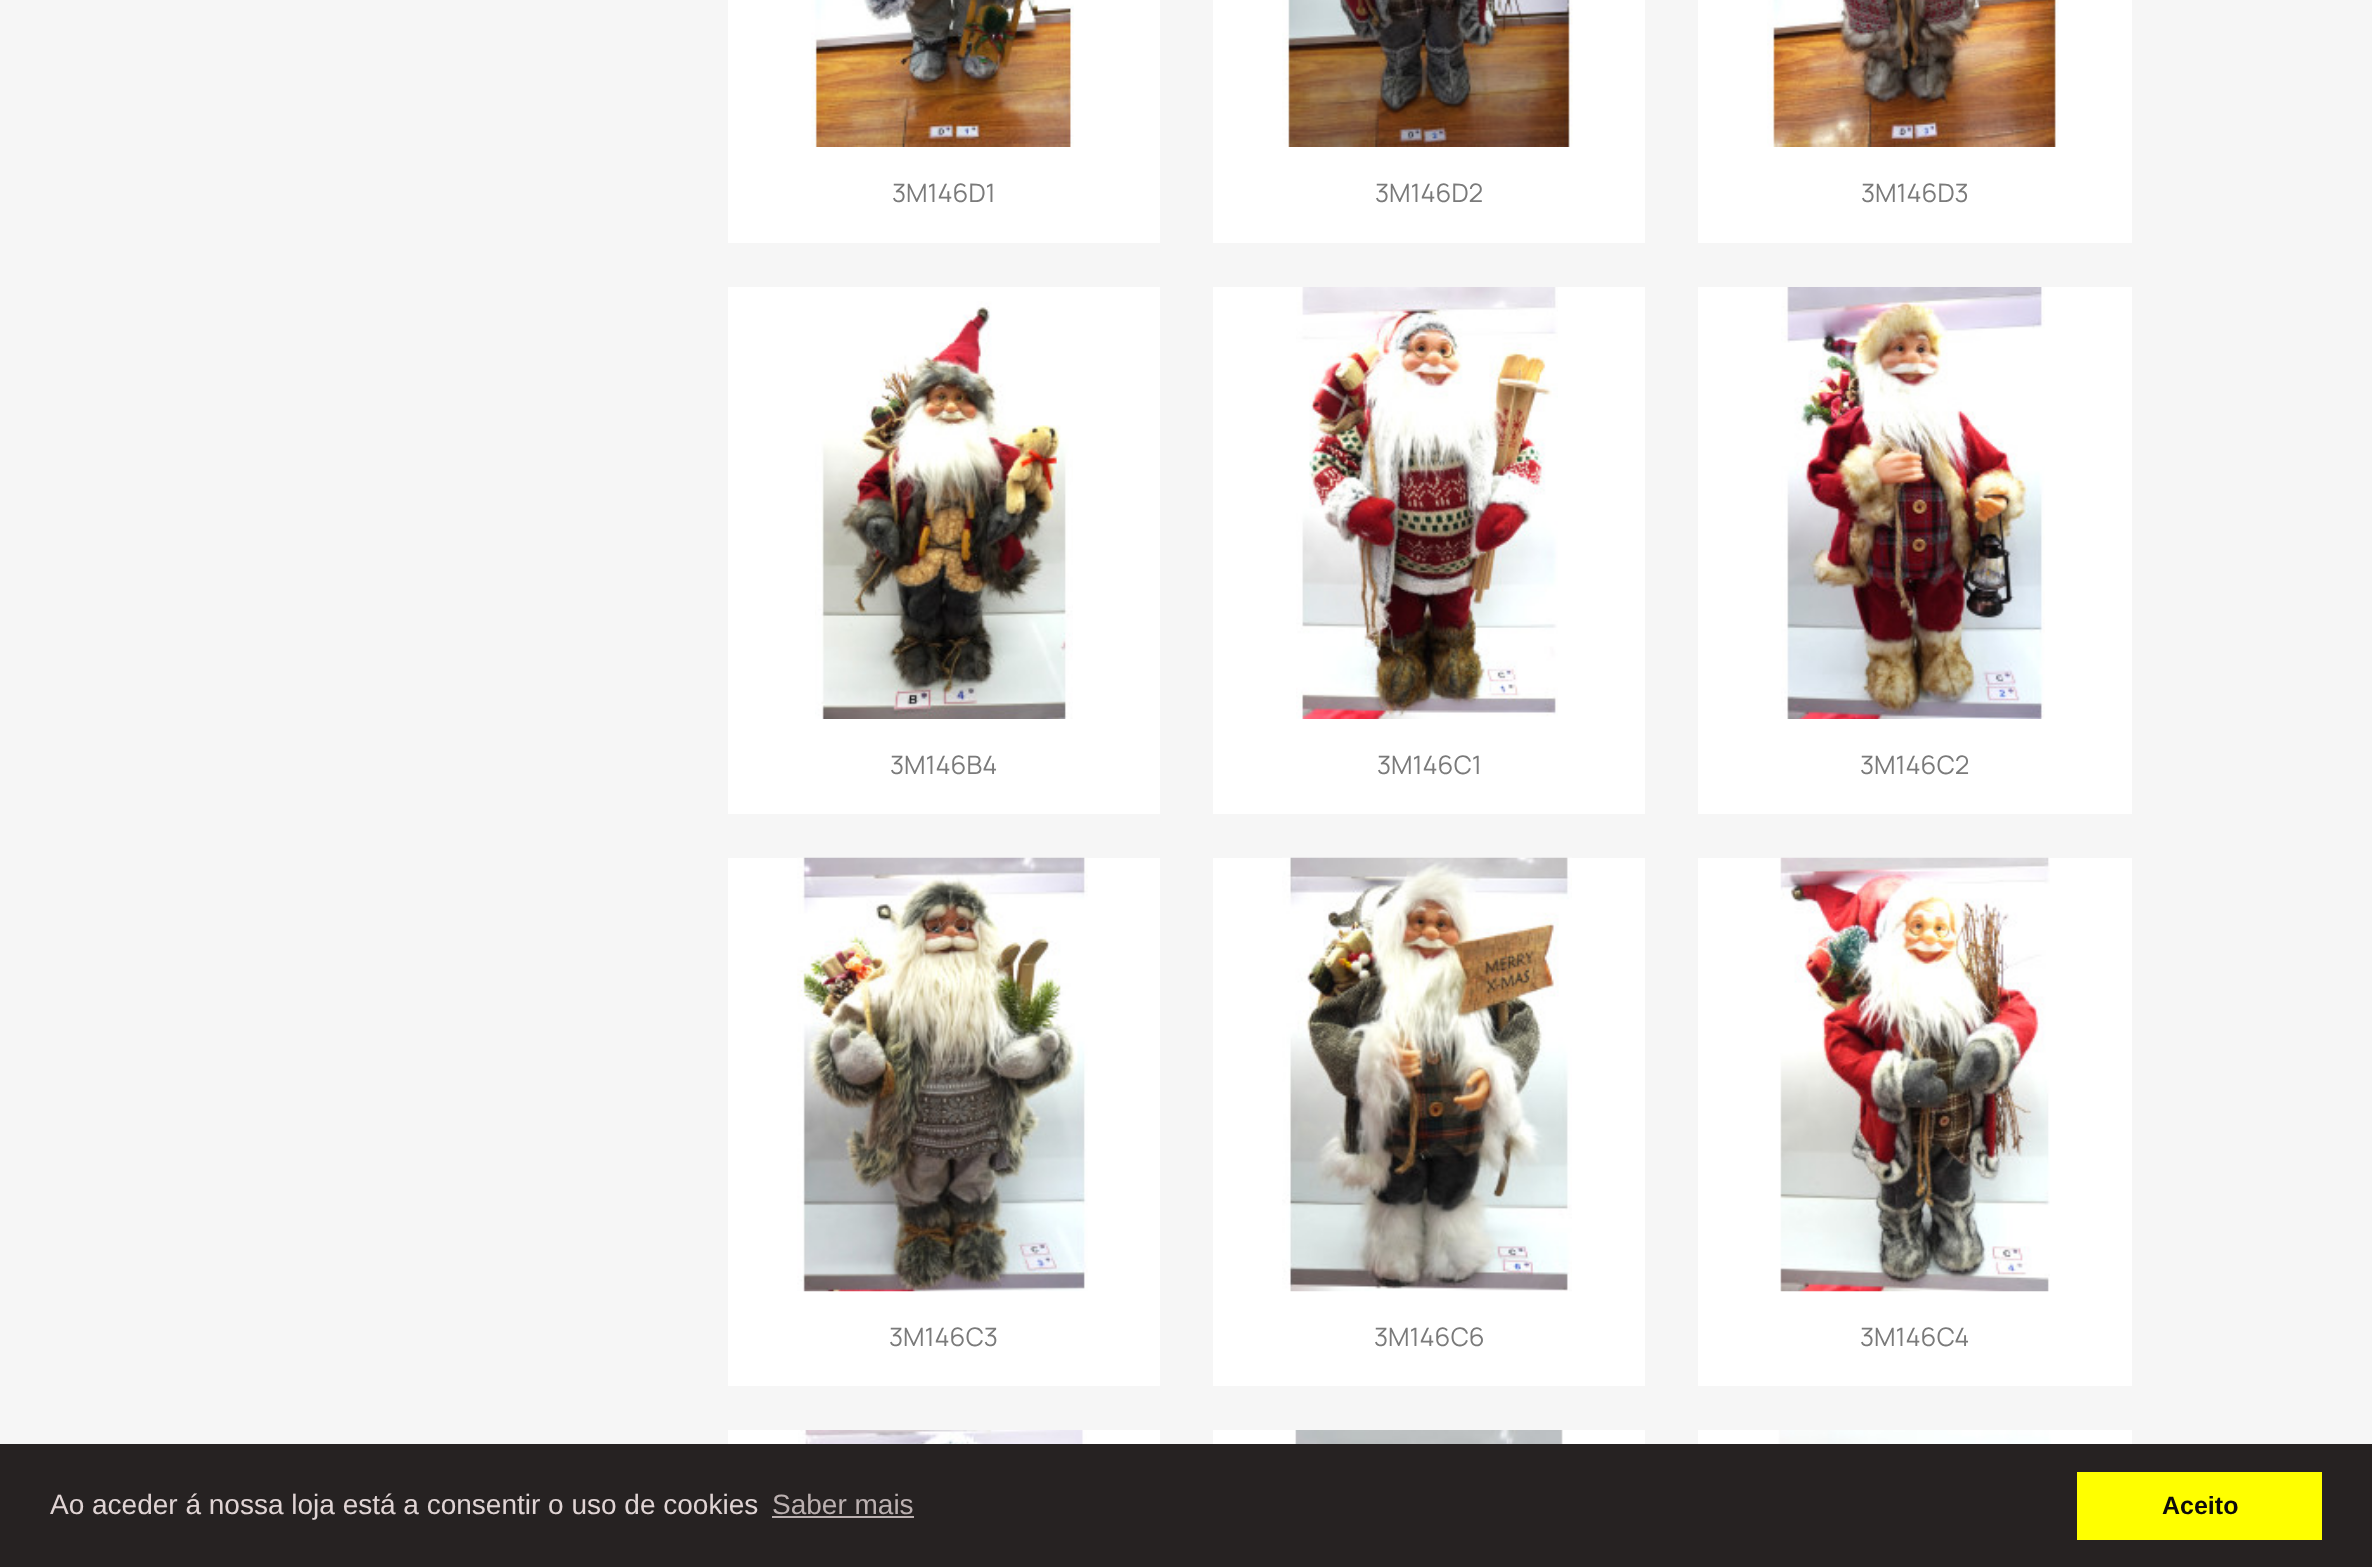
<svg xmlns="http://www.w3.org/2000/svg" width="2372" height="1567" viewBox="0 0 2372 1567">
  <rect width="100%" height="100%" fill="#f6f6f6"/>
  <rect x="728" y="0" width="432" height="243" fill="#ffffff"/>
  <image x="811" y="0" width="263" height="147" href="img1.png"/>
  <text x="892" y="202" font-family="Manrope" font-size="24.5" fill="#7a7a7a">3M146D1</text>
  <rect x="1213" y="0" width="432" height="243" fill="#ffffff"/>
  <image x="1282" y="0" width="291" height="147" href="img2.png"/>
  <text x="1375" y="202" font-family="Manrope" font-size="24.5" fill="#7a7a7a">3M146D2</text>
  <rect x="1698" y="0" width="434" height="243" fill="#ffffff"/>
  <image x="1767" y="0" width="292" height="147" href="img3.png"/>
  <text x="1861" y="202" font-family="Manrope" font-size="24.5" fill="#7a7a7a">3M146D3</text>
  <rect x="728" y="287" width="432" height="527" fill="#ffffff"/>
  <image x="815" y="301" width="258" height="418" href="img4.png"/>
  <text x="890" y="774" font-family="Manrope" font-size="24.5" fill="#7a7a7a">3M146B4</text>
  <rect x="1213" y="287" width="432" height="527" fill="#ffffff"/>
  <image x="1296" y="287" width="262" height="432" href="img5.png"/>
  <text x="1377" y="774" font-family="Manrope" font-size="24.5" fill="#7a7a7a">3M146C1</text>
  <rect x="1698" y="287" width="434" height="527" fill="#ffffff"/>
  <image x="1781" y="287" width="264" height="432" href="img6.png"/>
  <text x="1860" y="774" font-family="Manrope" font-size="24.5" fill="#7a7a7a">3M146C2</text>
  <rect x="728" y="858" width="432" height="528" fill="#ffffff"/>
  <image x="797" y="857" width="291" height="435" href="img7.png"/>
  <text x="889" y="1346" font-family="Manrope" font-size="24.5" fill="#7a7a7a">3M146C3</text>
  <rect x="1213" y="858" width="432" height="528" fill="#ffffff"/>
  <image x="1282" y="857" width="290" height="435" href="img8.png"/>
  <text x="1374" y="1346" font-family="Manrope" font-size="24.5" fill="#7a7a7a">3M146C6</text>
  <rect x="1698" y="858" width="434" height="528" fill="#ffffff"/>
  <image x="1780" y="857" width="270" height="435" href="img9.png"/>
  <text x="1860" y="1346" font-family="Manrope" font-size="24.5" fill="#7a7a7a">3M146C4</text>
  <rect x="728" y="1430" width="432" height="14" fill="#ffffff"/>
  <image x="798" y="1430" width="289" height="14" href="img10.png"/>
  <rect x="1213" y="1430" width="432" height="14" fill="#ffffff"/>
  <image x="1295" y="1430" width="268" height="14" href="img11.png"/>
  <rect x="1698" y="1430" width="434" height="14" fill="#ffffff"/>
  <image x="1778" y="1430" width="273" height="14" href="img12.png"/>
  <rect x="0" y="1444" width="2372" height="123" fill="#262222"/>
  <text x="50" y="1514" font-family="Liberation Sans" font-size="28" fill="#e0d4d4">Ao aceder á nossa loja está a consentir o uso de cookies</text>
  <text x="772" y="1514" font-family="Liberation Sans" font-size="28" fill="#bbb0b0">Saber mais</text>
  <rect x="772" y="1516" width="142" height="2" fill="#bbb0b0"/>
  <rect x="2077" y="1472" width="245" height="68" fill="#ffff00"/>
  <text x="2162" y="1514" font-family="Liberation Sans" font-size="25" font-weight="bold" fill="#0d0b0b">Aceito</text>
</svg>
